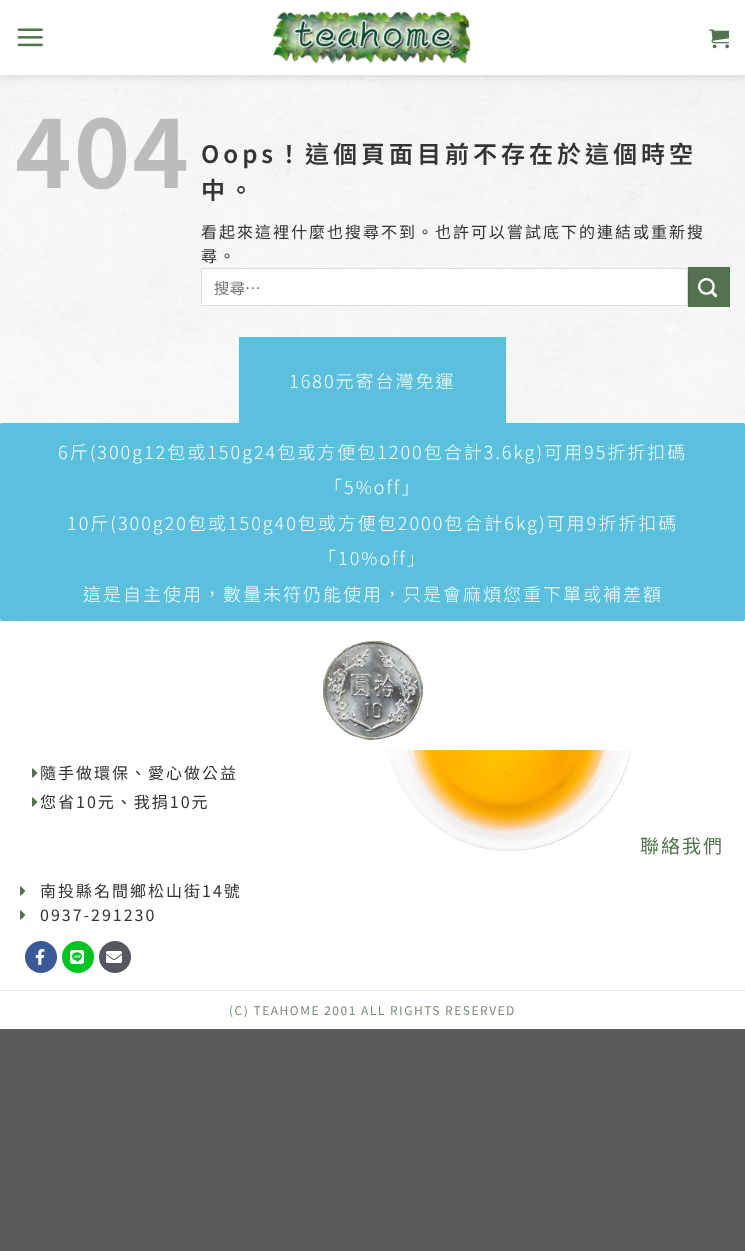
<svg xmlns="http://www.w3.org/2000/svg" width="745" height="1251" viewBox="0 0 745 1251">
  <defs>
    <filter id="blur1" x="-50%" y="-200%" width="200%" height="500%"><feGaussianBlur stdDeviation="5"/></filter>
  </defs>
  <rect width="100%" height="100%" fill="#5b5b5b"/>
  <image x="0" y="75" width="745" height="546" href="img1.png"/>
  <rect x="1" y="1" width="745" height="75" fill="#000000" fill-opacity="0.15" filter="url(#blur1)"/>
  <rect x="0" y="0" width="745" height="75" fill="#ffffff"/>
  <image x="17" y="28" width="26" height="19" href="img2.png"/>
  <image x="273" y="11" width="198" height="53" href="img3.png"/>
  <image x="709" y="29" width="20" height="20" href="img4.png"/>
  <text x="15" y="188" font-family="Noto Sans TC" font-size="96" font-weight="bold" letter-spacing="2" fill="#bcbcbc">404</text>
  <text x="201" y="163" font-family="Noto Sans TC" font-size="24" font-weight="600" letter-spacing="4" fill="#333333">Oops！這個頁面目前不存在於這個時空</text>
  <text x="201" y="199" font-family="Noto Sans TC" font-size="24" font-weight="600" letter-spacing="4" fill="#333333">中。</text>
  <text x="201" y="238" font-family="Noto Sans TC" font-size="16" letter-spacing="2" fill="#333333">看起來這裡什麼也搜尋不到。也許可以嘗試底下的連結或重新搜</text>
  <text x="201" y="262" font-family="Noto Sans TC" font-size="16" letter-spacing="2" fill="#333333">尋。</text>
  <rect x="201.5" y="268.5" width="486" height="37" fill="#ffffff" stroke="#dddddd"/>
  <text x="214" y="294" font-family="Noto Sans TC" font-size="15.5" fill="#757575">搜尋…</text>
  <rect x="688.5" y="267.5" width="41" height="39" fill="#52734d" stroke="#4e6d49"/>
  <image x="698" y="278" width="20" height="20" href="img5.png"/>
  <rect x="239" y="337" width="267" height="86" fill="#5bc0de"/>
  <text x="289" y="388" font-family="Noto Sans TC" font-size="18" font-weight="300" letter-spacing="2" fill="#ffffff">1680元寄台灣免運</text>
  <rect x="0" y="423" width="745" height="198" rx="2" fill="#5bc0de"/>
  <text x="58" y="459" font-family="Noto Sans TC" font-size="18" font-weight="300" letter-spacing="2" fill="#ffffff">6斤(300g12包或150g24包或方便包1200包合計3.6kg)可用95折折扣碼</text>
  <text x="324" y="494" font-family="Noto Sans TC" font-size="18" font-weight="300" letter-spacing="2" fill="#ffffff">「5%off」</text>
  <text x="67" y="530" font-family="Noto Sans TC" font-size="18" font-weight="300" letter-spacing="2" fill="#ffffff">10斤(300g20包或150g40包或方便包2000包合計6kg)可用9折折扣碼</text>
  <text x="318" y="565" font-family="Noto Sans TC" font-size="18" font-weight="300" letter-spacing="2" fill="#ffffff">「10%off」</text>
  <text x="83" y="601" font-family="Noto Sans TC" font-size="18" font-weight="300" letter-spacing="2" fill="#ffffff">這是自主使用，數量未符仍能使用，只是會麻煩您重下單或補差額</text>
  <rect x="0" y="621" width="745" height="369" fill="#ffffff"/>
  <image x="388" y="750" width="243" height="103" href="img6.png"/>
  <image x="323" y="641" width="100" height="99" href="img7.png"/>
  <image x="32" y="768" width="6" height="10" href="img8.png"/>
  <text x="40" y="779" font-family="Noto Sans TC" font-size="16" letter-spacing="2" fill="#333333">隨手做環保、愛心做公益</text>
  <image x="32" y="797" width="6" height="10" href="img8.png"/>
  <text x="40" y="808" font-family="Noto Sans TC" font-size="16" letter-spacing="2" fill="#333333">您省10元、我捐10元</text>
  <text x="640" y="853" font-family="Noto Sans TC" font-size="19" letter-spacing="2" fill="#52734d">聯絡我們</text>
  <image x="20" y="886" width="6" height="10" href="img8.png"/>
  <text x="40" y="897" font-family="Noto Sans TC" font-size="16" letter-spacing="2" fill="#333333">南投縣名間鄉松山街14號</text>
  <image x="20" y="910" width="6" height="10" href="img8.png"/>
  <text x="40" y="921" font-family="Noto Sans TC" font-size="16" letter-spacing="2" fill="#333333">0937-291230</text>
  <circle cx="41" cy="957" r="16" fill="#3b5998"/>
  <image x="35" y="949" width="10" height="16" href="img9.png"/>
  <circle cx="78" cy="957" r="16" fill="#00c323"/>
  <image x="70" y="950" width="15" height="14" href="img10.png"/>
  <circle cx="115" cy="957" r="16" fill="#54595f"/>
  <image x="106" y="951" width="16" height="12" href="img11.png"/>
  <rect x="0" y="991" width="745" height="38" fill="#ffffff"/>
  <rect x="0" y="990" width="745" height="1" fill="#e2e2e2"/>
  <text x="229" y="1015" font-family="Noto Sans TC" font-size="12" letter-spacing="1.5" fill="#758f71">(C) TEAHOME 2001 ALL RIGHTS RESERVED</text>
</svg>
